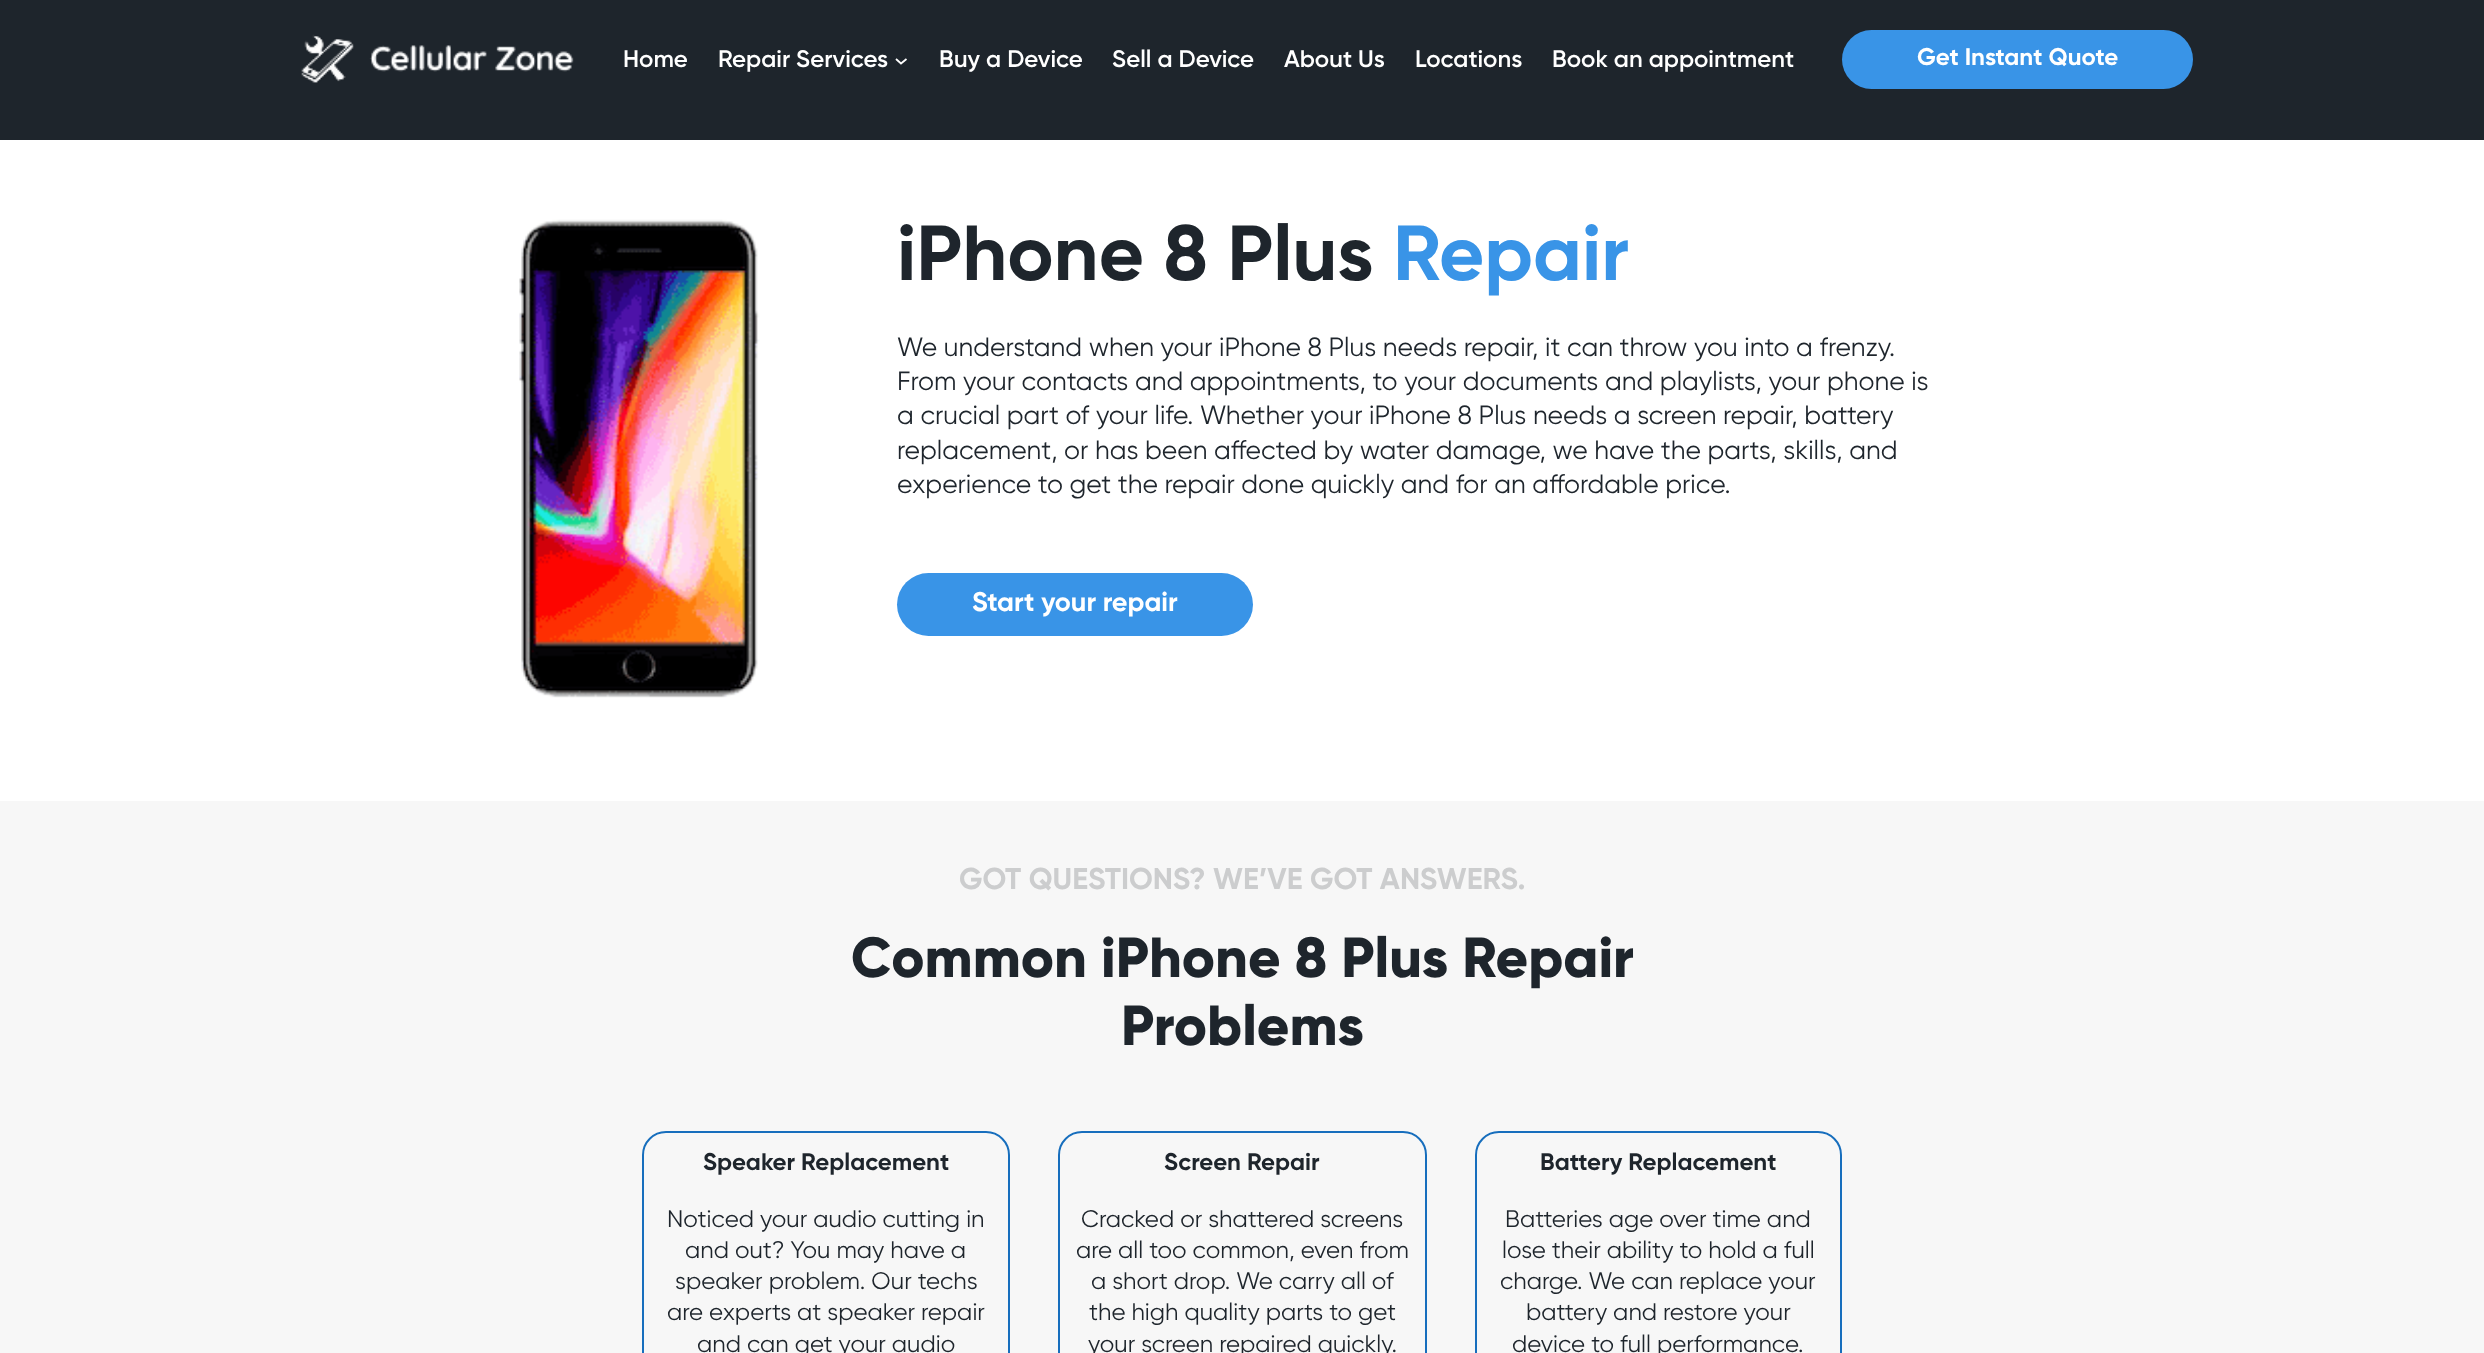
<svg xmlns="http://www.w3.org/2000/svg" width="2484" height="1353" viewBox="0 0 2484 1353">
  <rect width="100%" height="100%" fill="#ffffff"/>
  <rect x="0" y="0" width="2484" height="140" fill="#1e252c"/>
  <image x="301" y="34" width="273" height="49" href="img1.png"/>
  <text x="623" y="67" font-family="Gilroy" font-size="24" font-weight="600" fill="#ffffff">Home</text>
  <text x="718" y="67" font-family="Gilroy" font-size="24" font-weight="600" fill="#ffffff">Repair Services</text>
  <path d="M896 59L901 63.5L906.5 59" fill="none" stroke="#ffffff" stroke-width="1.8"/>
  <text x="939" y="67" font-family="Gilroy" font-size="24" font-weight="600" fill="#ffffff">Buy a Device</text>
  <text x="1112" y="67" font-family="Gilroy" font-size="24" font-weight="600" fill="#ffffff">Sell a Device</text>
  <text x="1284" y="67" font-family="Gilroy" font-size="24" font-weight="600" fill="#ffffff">About Us</text>
  <text x="1415" y="67" font-family="Gilroy" font-size="24" font-weight="600" fill="#ffffff">Locations</text>
  <text x="1552" y="67" font-family="Gilroy" font-size="24" font-weight="600" fill="#ffffff">Book an appointment</text>
  <rect x="1842" y="30" width="351" height="59" rx="29.5" fill="#3994e7"/>
  <text x="1917" y="65" font-family="Gilroy" font-size="24" font-weight="bold" fill="#ffffff">Get Instant Quote</text>
  <image x="519" y="219" width="241" height="479" href="img2.png"/>
  <text x="897" y="280" font-family="Gilroy" font-size="78" font-weight="bold" fill="#1e252c">iPhone 8 Plus</text>
  <text x="1393" y="280" font-family="Gilroy" font-size="78" font-weight="bold" fill="#3994e7">Repair</text>
  <text x="897" y="356" font-family="Gilroy" font-size="26.4" fill="#1e252c">We understand when your iPhone 8 Plus needs repair, it can throw you into a frenzy.</text>
  <text x="897" y="390" font-family="Gilroy" font-size="26.4" fill="#1e252c">From your contacts and appointments, to your documents and playlists, your phone is</text>
  <text x="897" y="424" font-family="Gilroy" font-size="26.4" fill="#1e252c">a crucial part of your life. Whether your iPhone 8 Plus needs a screen repair, battery</text>
  <text x="897" y="459" font-family="Gilroy" font-size="26.4" fill="#1e252c">replacement, or has been affected by water damage, we have the parts, skills, and</text>
  <text x="897" y="493" font-family="Gilroy" font-size="26.4" fill="#1e252c">experience to get the repair done quickly and for an affordable price.</text>
  <rect x="897" y="573" width="356" height="63" rx="31.5" fill="#3994e7"/>
  <text x="972" y="611" font-family="Gilroy" font-size="27" font-weight="bold" fill="#ffffff">Start your repair</text>
  <rect x="0" y="801" width="2484" height="552" fill="#f7f7f7"/>
  <text x="959" y="889" font-family="Gilroy" font-size="30" font-weight="bold" fill="#cccdce">GOT QUESTIONS? WE’VE GOT ANSWERS.</text>
  <text x="851" y="977" font-family="Gilroy" font-size="56.4" font-weight="800" fill="#1e252c">Common iPhone 8 Plus Repair</text>
  <text x="1121" y="1045" font-family="Gilroy" font-size="56.4" font-weight="800" fill="#1e252c">Problems</text>
  <rect x="643" y="1132" width="366" height="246" rx="23" fill="none" stroke="#176ebd" stroke-width="2"/>
  <text x="703" y="1170" font-family="Gilroy" font-size="24" font-weight="bold" fill="#1e252c">Speaker Replacement</text>
  <text x="667" y="1227" font-family="Gilroy" font-size="24" fill="#1e252c">Noticed your audio cutting in</text>
  <text x="685" y="1258" font-family="Gilroy" font-size="24" fill="#1e252c">and out? You may have a</text>
  <text x="675" y="1289" font-family="Gilroy" font-size="24" fill="#1e252c">speaker problem. Our techs</text>
  <text x="667" y="1320" font-family="Gilroy" font-size="24" fill="#1e252c">are experts at speaker repair</text>
  <text x="697" y="1352" font-family="Gilroy" font-size="24" fill="#1e252c">and can get your audio</text>
  <rect x="1059" y="1132" width="367" height="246" rx="23" fill="none" stroke="#176ebd" stroke-width="2"/>
  <text x="1164" y="1170" font-family="Gilroy" font-size="24" font-weight="bold" fill="#1e252c">Screen Repair</text>
  <text x="1081" y="1227" font-family="Gilroy" font-size="24" fill="#1e252c">Cracked or shattered screens</text>
  <text x="1076" y="1258" font-family="Gilroy" font-size="24" fill="#1e252c">are all too common, even from</text>
  <text x="1091" y="1289" font-family="Gilroy" font-size="24" fill="#1e252c">a short drop. We carry all of</text>
  <text x="1089" y="1320" font-family="Gilroy" font-size="24" fill="#1e252c">the high quality parts to get</text>
  <text x="1088" y="1352" font-family="Gilroy" font-size="24" fill="#1e252c">your screen repaired quickly.</text>
  <rect x="1476" y="1132" width="365" height="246" rx="23" fill="none" stroke="#176ebd" stroke-width="2"/>
  <text x="1540" y="1170" font-family="Gilroy" font-size="24" font-weight="bold" fill="#1e252c">Battery Replacement</text>
  <text x="1505" y="1227" font-family="Gilroy" font-size="24" fill="#1e252c">Batteries age over time and</text>
  <text x="1502" y="1258" font-family="Gilroy" font-size="24" fill="#1e252c">lose their ability to hold a full</text>
  <text x="1500" y="1289" font-family="Gilroy" font-size="24" fill="#1e252c">charge. We can replace your</text>
  <text x="1526" y="1320" font-family="Gilroy" font-size="24" fill="#1e252c">battery and restore your</text>
  <text x="1512" y="1352" font-family="Gilroy" font-size="24" fill="#1e252c">device to full performance.</text>
</svg>
